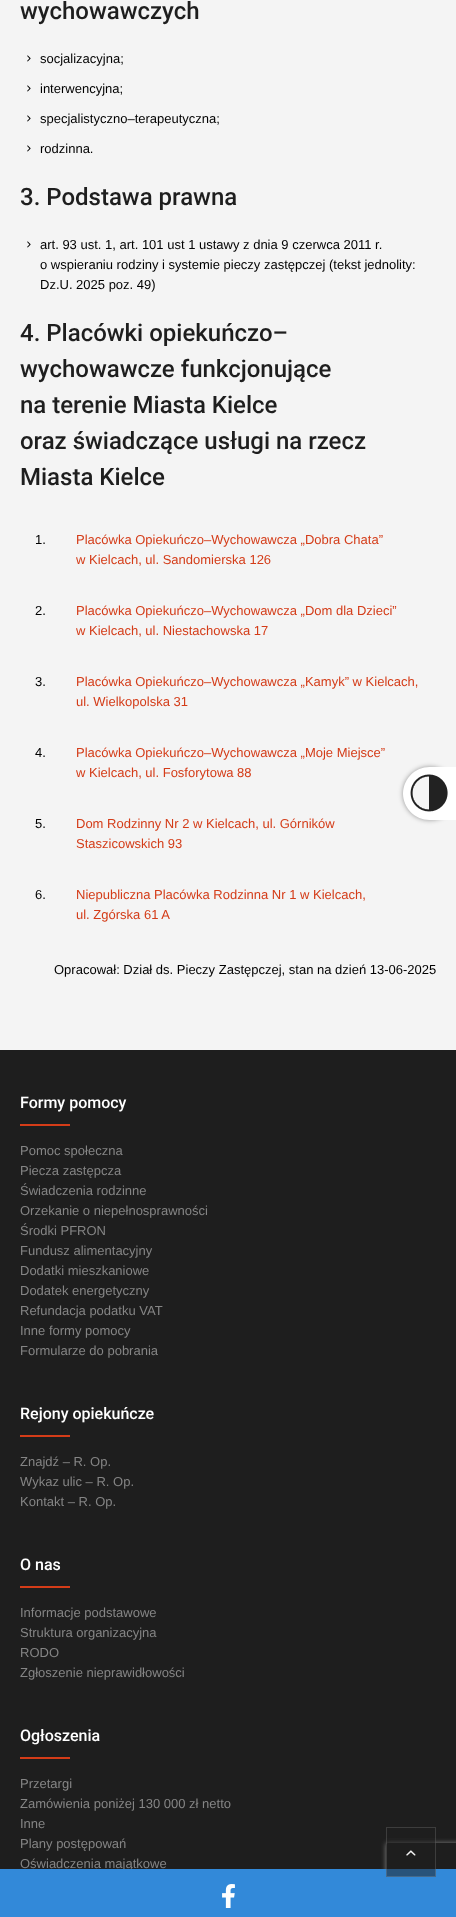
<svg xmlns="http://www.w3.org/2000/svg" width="456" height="1917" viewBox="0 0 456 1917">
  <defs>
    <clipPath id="clip1"><path d="M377 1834H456V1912H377ZM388 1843H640C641 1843 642 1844 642 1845V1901C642 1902 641 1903 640 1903H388C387 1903 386 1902 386 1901V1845C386 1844 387 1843 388 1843Z" clip-rule="evenodd"/></clipPath>
    <filter id="blur1" x="-50%" y="-200%" width="200%" height="500%"><feGaussianBlur stdDeviation="2.5"/></filter>
  </defs>
  <rect width="100%" height="100%" fill="#f4f4f4"/>
  <text x="20" y="19" font-family="Roboto" font-size="24" font-weight="500" fill="#1e1e1e">wychowawczych</text>
  <image x="27" y="55" width="4" height="7" href="img1.png"/>
  <text x="40" y="63" font-family="Liberation Sans" font-size="13" fill="#000000">socjalizacyjna;</text>
  <image x="27" y="85" width="4" height="7" href="img1.png"/>
  <text x="40" y="93" font-family="Liberation Sans" font-size="13" fill="#000000">interwencyjna;</text>
  <image x="27" y="115" width="4" height="7" href="img1.png"/>
  <text x="40" y="123" font-family="Liberation Sans" font-size="13" fill="#000000">specjalistyczno–terapeutyczna;</text>
  <image x="27" y="145" width="4" height="7" href="img1.png"/>
  <text x="40" y="153" font-family="Liberation Sans" font-size="13" fill="#000000">rodzinna.</text>
  <text x="20" y="205" font-family="Roboto" font-size="24" font-weight="500" fill="#1e1e1e">3. Podstawa prawna</text>
  <image x="27" y="241" width="4" height="7" href="img1.png"/>
  <text x="40" y="249" font-family="Liberation Sans" font-size="13" fill="#000000">art. 93 ust. 1, art. 101 ust 1 ustawy z dnia 9 czerwca 2011 r.</text>
  <text x="40" y="269" font-family="Liberation Sans" font-size="13" fill="#000000">o wspieraniu rodziny i systemie pieczy zastępczej (tekst jednolity:</text>
  <text x="40" y="289" font-family="Liberation Sans" font-size="13" fill="#000000">Dz.U. 2025 poz. 49)</text>
  <text x="20" y="341" font-family="Roboto" font-size="24" font-weight="500" fill="#1e1e1e">4. Placówki opiekuńczo–</text>
  <text x="20" y="377" font-family="Roboto" font-size="24" font-weight="500" fill="#1e1e1e">wychowawcze funkcjonujące</text>
  <text x="20" y="413" font-family="Roboto" font-size="24" font-weight="500" fill="#1e1e1e">na terenie Miasta Kielce</text>
  <text x="20" y="449" font-family="Roboto" font-size="24" font-weight="500" fill="#1e1e1e">oraz świadczące usługi na rzecz</text>
  <text x="20" y="485" font-family="Roboto" font-size="24" font-weight="500" fill="#1e1e1e">Miasta Kielce</text>
  <text x="35" y="544" font-family="Liberation Sans" font-size="13" fill="#000000">1.</text>
  <text x="76" y="544" font-family="Liberation Sans" font-size="13" fill="#d43c18">Placówka Opiekuńczo–Wychowawcza „Dobra Chata”</text>
  <text x="76" y="564" font-family="Liberation Sans" font-size="13" fill="#d43c18">w Kielcach, ul. Sandomierska 126</text>
  <text x="35" y="615" font-family="Liberation Sans" font-size="13" fill="#000000">2.</text>
  <text x="76" y="615" font-family="Liberation Sans" font-size="13" fill="#d43c18">Placówka Opiekuńczo–Wychowawcza „Dom dla Dzieci”</text>
  <text x="76" y="635" font-family="Liberation Sans" font-size="13" fill="#d43c18">w Kielcach, ul. Niestachowska 17</text>
  <text x="35" y="686" font-family="Liberation Sans" font-size="13" fill="#000000">3.</text>
  <text x="76" y="686" font-family="Liberation Sans" font-size="13" fill="#d43c18">Placówka Opiekuńczo–Wychowawcza „Kamyk” w Kielcach,</text>
  <text x="76" y="706" font-family="Liberation Sans" font-size="13" fill="#d43c18">ul. Wielkopolska 31</text>
  <text x="35" y="757" font-family="Liberation Sans" font-size="13" fill="#000000">4.</text>
  <text x="76" y="757" font-family="Liberation Sans" font-size="13" fill="#d43c18">Placówka Opiekuńczo–Wychowawcza „Moje Miejsce”</text>
  <text x="76" y="777" font-family="Liberation Sans" font-size="13" fill="#d43c18">w Kielcach, ul. Fosforytowa 88</text>
  <text x="35" y="828" font-family="Liberation Sans" font-size="13" fill="#000000">5.</text>
  <text x="76" y="828" font-family="Liberation Sans" font-size="13" fill="#d43c18">Dom Rodzinny Nr 2 w Kielcach, ul. Górników</text>
  <text x="76" y="848" font-family="Liberation Sans" font-size="13" fill="#d43c18">Staszicowskich 93</text>
  <text x="35" y="899" font-family="Liberation Sans" font-size="13" fill="#000000">6.</text>
  <text x="76" y="899" font-family="Liberation Sans" font-size="13" fill="#d43c18">Niepubliczna Placówka Rodzinna Nr 1 w Kielcach,</text>
  <text x="76" y="919" font-family="Liberation Sans" font-size="13" fill="#d43c18">ul. Zgórska 61 A</text>
  <text x="54" y="974" font-family="Liberation Sans" font-size="13" fill="#000000">Opracował: Dział ds. Pieczy Zastępczej, stan na dzień 13-06-2025</text>
  <rect x="0" y="1050" width="456" height="819" fill="#1e1e1e"/>
  <text x="20" y="1108" font-family="Roboto" font-size="16" font-weight="500" fill="#ffffff">Formy pomocy</text>
  <rect x="20" y="1124" width="50" height="2" fill="#d43c18"/>
  <text x="20" y="1155" font-family="Liberation Sans" font-size="13" fill="#858585">Pomoc społeczna</text>
  <text x="20" y="1175" font-family="Liberation Sans" font-size="13" fill="#858585">Piecza zastępcza</text>
  <text x="20" y="1195" font-family="Liberation Sans" font-size="13" fill="#858585">Świadczenia rodzinne</text>
  <text x="20" y="1215" font-family="Liberation Sans" font-size="13" fill="#858585">Orzekanie o niepełnosprawności</text>
  <text x="20" y="1235" font-family="Liberation Sans" font-size="13" fill="#858585">Środki PFRON</text>
  <text x="20" y="1255" font-family="Liberation Sans" font-size="13" fill="#858585">Fundusz alimentacyjny</text>
  <text x="20" y="1275" font-family="Liberation Sans" font-size="13" fill="#858585">Dodatki mieszkaniowe</text>
  <text x="20" y="1295" font-family="Liberation Sans" font-size="13" fill="#858585">Dodatek energetyczny</text>
  <text x="20" y="1315" font-family="Liberation Sans" font-size="13" fill="#858585">Refundacja podatku VAT</text>
  <text x="20" y="1335" font-family="Liberation Sans" font-size="13" fill="#858585">Inne formy pomocy</text>
  <text x="20" y="1355" font-family="Liberation Sans" font-size="13" fill="#858585">Formularze do pobrania</text>
  <text x="20" y="1419" font-family="Roboto" font-size="16" font-weight="500" fill="#ffffff">Rejony opiekuńcze</text>
  <rect x="20" y="1435" width="50" height="2" fill="#d43c18"/>
  <text x="20" y="1466" font-family="Liberation Sans" font-size="13" fill="#858585">Znajdź – R. Op.</text>
  <text x="20" y="1486" font-family="Liberation Sans" font-size="13" fill="#858585">Wykaz ulic – R. Op.</text>
  <text x="20" y="1506" font-family="Liberation Sans" font-size="13" fill="#858585">Kontakt – R. Op.</text>
  <text x="20" y="1570" font-family="Roboto" font-size="16" font-weight="500" fill="#ffffff">O nas</text>
  <rect x="20" y="1586" width="50" height="2" fill="#d43c18"/>
  <text x="20" y="1617" font-family="Liberation Sans" font-size="13" fill="#858585">Informacje podstawowe</text>
  <text x="20" y="1637" font-family="Liberation Sans" font-size="13" fill="#858585">Struktura organizacyjna</text>
  <text x="20" y="1657" font-family="Liberation Sans" font-size="13" fill="#858585">RODO</text>
  <text x="20" y="1677" font-family="Liberation Sans" font-size="13" fill="#858585">Zgłoszenie nieprawidłowości</text>
  <text x="20" y="1741" font-family="Roboto" font-size="16" font-weight="500" fill="#ffffff">Ogłoszenia</text>
  <rect x="20" y="1757" width="50" height="2" fill="#d43c18"/>
  <text x="20" y="1788" font-family="Liberation Sans" font-size="13" fill="#858585">Przetargi</text>
  <text x="20" y="1808" font-family="Liberation Sans" font-size="13" fill="#858585">Zamówienia poniżej 130 000 zł netto</text>
  <text x="20" y="1828" font-family="Liberation Sans" font-size="13" fill="#858585">Inne</text>
  <text x="20" y="1848" font-family="Liberation Sans" font-size="13" fill="#858585">Plany postępowań</text>
  <text x="20" y="1868" font-family="Liberation Sans" font-size="13" fill="#858585">Oświadczenia majątkowe</text>
  <g clip-path="url(#clip1)">
    <rect x="386" y="1843" width="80" height="60" rx="2" fill="#808080" filter="url(#blur1)"/>
  </g>
  <rect x="0" y="1869" width="456" height="48" fill="#3289d9"/>
  <rect x="386" y="1839" width="50" height="38" fill="#1e1e1e" fill-opacity="0.5"/>
  <rect x="386.5" y="1827.5" width="49" height="49" fill="none" stroke="#f4f4f4" stroke-opacity="0.15"/>
  <image x="406" y="1850" width="10" height="6" href="img2.png"/>
  <rect x="403" y="767" width="53" height="53" rx="26.5" fill="#000000" fill-opacity="0.4" filter="url(#blur1)"/>
  <path d="M429.5 767H456V820H429.5C415 820 403 808 403 793.5C403 779 415 767 429.5 767Z" fill="#ffffff"/>
  <image x="410" y="774" width="38" height="38" href="img3.png"/>
  <image x="222" y="1884" width="13" height="24" href="img4.png"/>
</svg>
